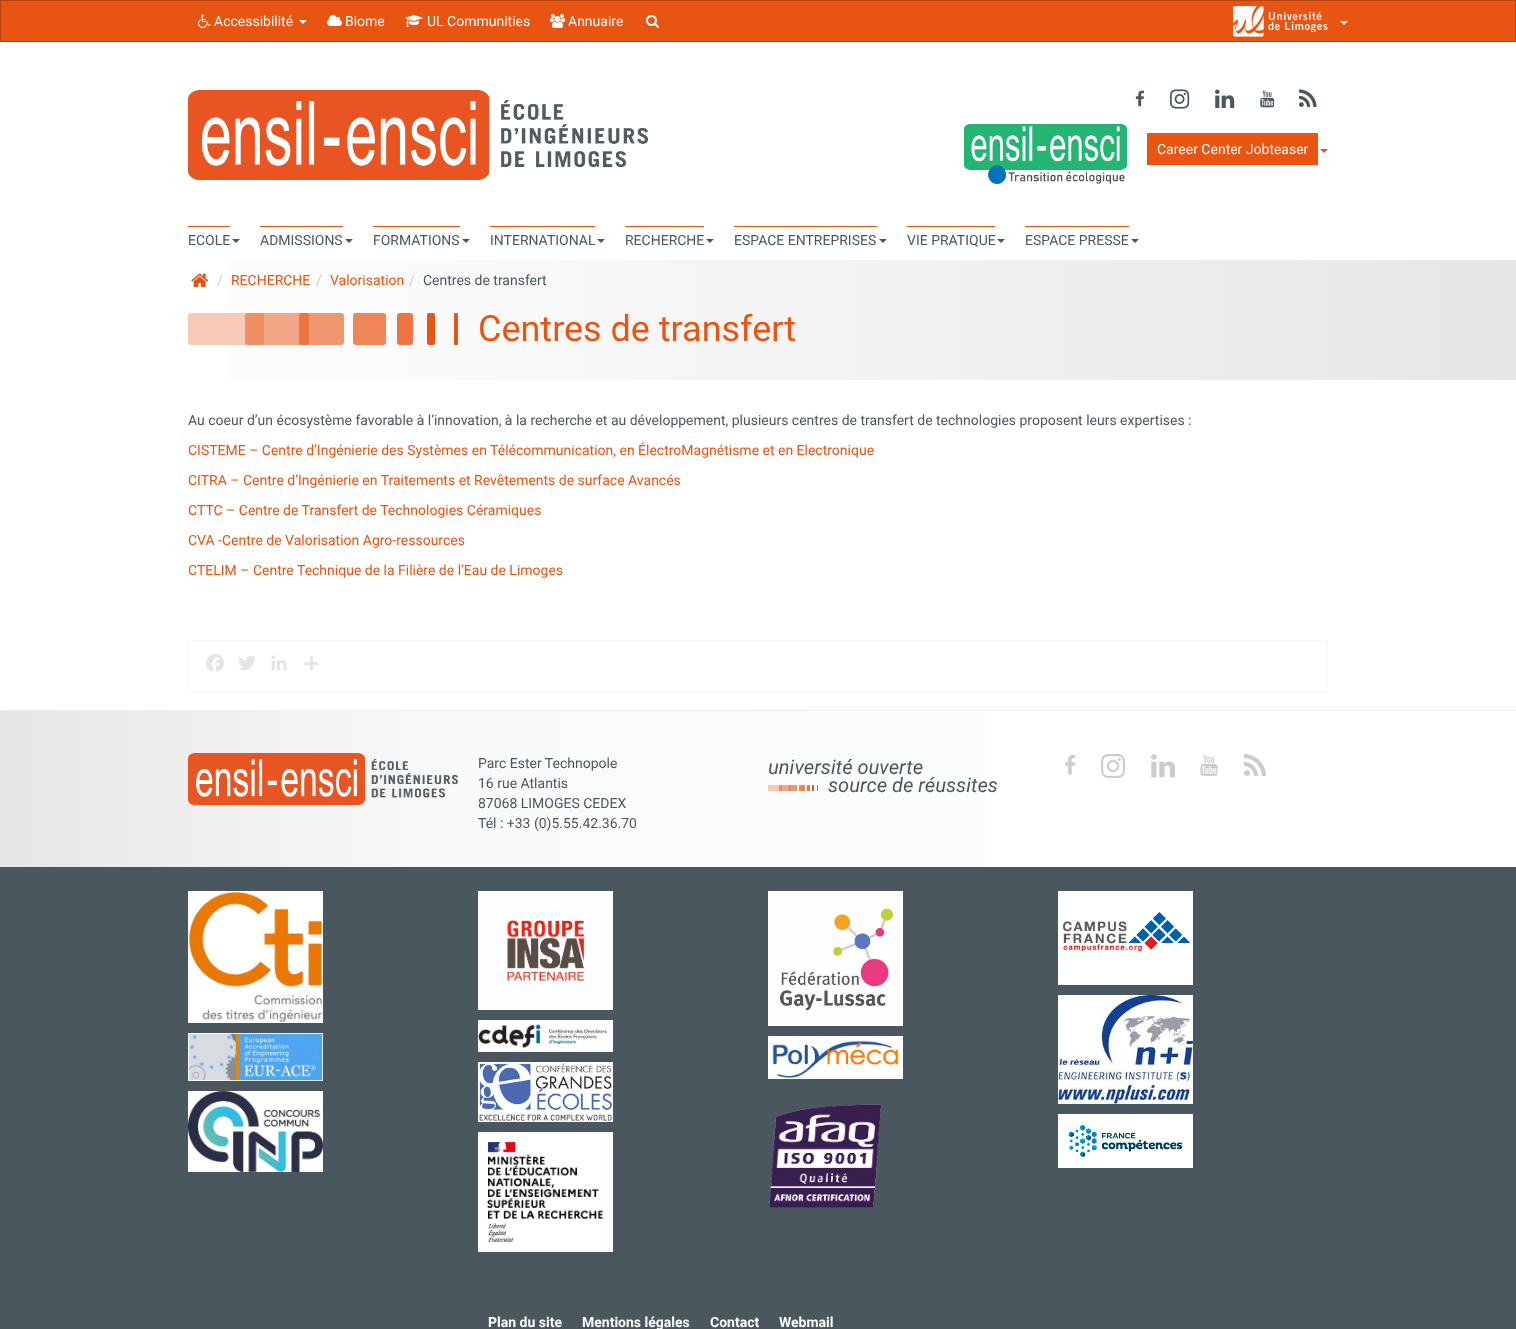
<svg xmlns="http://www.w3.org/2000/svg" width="1516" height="1329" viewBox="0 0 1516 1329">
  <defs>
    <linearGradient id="g1" gradientUnits="userSpaceOnUse" x1="0" y1="320" x2="1516" y2="320"><stop offset="0" stop-color="#ffffff"/><stop offset="0.3" stop-color="#fafafa"/><stop offset="1" stop-color="#e6e6e6"/></linearGradient>
    <linearGradient id="g2" gradientUnits="userSpaceOnUse" x1="0" y1="789" x2="1516" y2="789"><stop offset="0" stop-color="#e6e6e6"/><stop offset="0.3" stop-color="#fafafa"/><stop offset="1" stop-color="#ffffff"/></linearGradient>
  </defs>
  <rect width="100%" height="100%" fill="#ffffff"/>
  <rect x="0.5" y="0.5" width="1515" height="41" fill="#e85412" stroke="#b9430e"/>
  <image x="198" y="14" width="13" height="14" href="img1.png"/>
  <text x="214" y="26" font-family="Roboto" font-size="14" fill="#ffffff">Accessibilité</text>
  <path d="M299 20H307L303 24Z" fill="#ffffff"/>
  <image x="327" y="15" width="15" height="11" href="img2.png"/>
  <text x="345" y="26" font-family="Roboto" font-size="14" fill="#ffffff">Biome</text>
  <image x="405" y="15" width="18" height="12" href="img3.png"/>
  <text x="427" y="26" font-family="Roboto" font-size="14" fill="#ffffff">UL Communities</text>
  <image x="550" y="14" width="15" height="14" href="img4.png"/>
  <text x="568" y="26" font-family="Roboto" font-size="14" fill="#ffffff">Annuaire</text>
  <image x="646" y="15" width="13" height="13" href="img5.png"/>
  <image x="1233" y="6" width="95" height="31" href="img6.png"/>
  <path d="M1340 21H1348L1344 25Z" fill="#ffffff"/>
  <image x="188" y="90" width="460" height="90" href="img7.png"/>
  <image x="1135" y="90" width="9" height="17" href="img8.png"/>
  <image x="1170" y="89" width="20" height="20" href="img9.png"/>
  <image x="1215" y="89" width="20" height="19" href="img10.png"/>
  <image x="1260" y="90" width="15" height="18" href="img11.png"/>
  <image x="1299" y="89" width="18" height="18" href="img12.png"/>
  <image x="964" y="124" width="163" height="60" href="img13.png"/>
  <rect x="1147" y="133" width="171" height="32" fill="#e85412"/>
  <text x="1157" y="154" font-family="Roboto" font-size="14" fill="#ffffff">Career Center Jobteaser</text>
  <path d="M1320 149H1328L1324 153Z" fill="#e85412"/>
  <text x="188" y="245" font-family="Roboto" font-size="14" fill="#4b575f">ECOLE</text>
  <rect x="188" y="226" width="42" height="1" fill="#e85412"/>
  <path d="M232 239H240L236 243Z" fill="#4b575f"/>
  <text x="260" y="245" font-family="Roboto" font-size="14" fill="#4b575f">ADMISSIONS</text>
  <rect x="260" y="226" width="83" height="1" fill="#e85412"/>
  <path d="M345 239H353L349 243Z" fill="#4b575f"/>
  <text x="373" y="245" font-family="Roboto" font-size="14" fill="#4b575f">FORMATIONS</text>
  <rect x="373" y="226" width="87" height="1" fill="#e85412"/>
  <path d="M462 239H470L466 243Z" fill="#4b575f"/>
  <text x="490" y="245" font-family="Roboto" font-size="14" fill="#4b575f">INTERNATIONAL</text>
  <rect x="490" y="226" width="105" height="1" fill="#e85412"/>
  <path d="M597 239H605L601 243Z" fill="#4b575f"/>
  <text x="625" y="245" font-family="Roboto" font-size="14" fill="#4b575f">RECHERCHE</text>
  <rect x="625" y="226" width="79" height="1" fill="#e85412"/>
  <path d="M706 239H714L710 243Z" fill="#4b575f"/>
  <text x="734" y="245" font-family="Roboto" font-size="14" fill="#4b575f">ESPACE ENTREPRISES</text>
  <rect x="734" y="226" width="143" height="1" fill="#e85412"/>
  <path d="M879 239H887L883 243Z" fill="#4b575f"/>
  <text x="907" y="245" font-family="Roboto" font-size="14" fill="#4b575f">VIE PRATIQUE</text>
  <rect x="907" y="226" width="88" height="1" fill="#e85412"/>
  <path d="M997 239H1005L1001 243Z" fill="#4b575f"/>
  <text x="1025" y="245" font-family="Roboto" font-size="14" fill="#4b575f">ESPACE PRESSE</text>
  <rect x="1025" y="226" width="104" height="1" fill="#e85412"/>
  <path d="M1131 239H1139L1135 243Z" fill="#4b575f"/>
  <rect x="227" y="260" width="1289" height="120" fill="url(#g1)"/>
  <image x="191" y="273" width="17" height="14" href="img14.png"/>
  <text x="217" y="285" font-family="Roboto" font-size="14" fill="#cccccc">/</text>
  <text x="231" y="285" font-family="Roboto" font-size="14" fill="#e85412">RECHERCHE</text>
  <text x="316" y="285" font-family="Roboto" font-size="14" fill="#cccccc">/</text>
  <text x="330" y="285" font-family="Roboto" font-size="14" fill="#e85412">Valorisation</text>
  <text x="409" y="285" font-family="Roboto" font-size="14" fill="#cccccc">/</text>
  <text x="423" y="285" font-family="Roboto" font-size="14" fill="#4b575f">Centres de transfert</text>
  <rect x="188" y="313" width="76" height="32" rx="3" fill="#f6cab6"/>
  <rect x="245" y="313" width="64" height="32" rx="3" fill="#e85412" fill-opacity="0.5"/>
  <rect x="299" y="313" width="45" height="32" rx="3" fill="#e85412" fill-opacity="0.6"/>
  <rect x="353" y="313" width="33" height="32" rx="3" fill="#ee8658"/>
  <rect x="397" y="313" width="16" height="32" rx="3" fill="#ec7541"/>
  <rect x="427" y="313" width="8" height="32" rx="2" fill="#e85412"/>
  <rect x="454" y="313" width="4" height="32" rx="1" fill="#e85412"/>
  <text x="478" y="341" font-family="Roboto" font-size="36" fill="#e85412">Centres de transfert</text>
  <text x="188" y="425" font-family="Roboto" font-size="14" fill="#4b575f">Au coeur d’un écosystème favorable à l’innovation, à la recherche et au développement, plusieurs centres de transfert de technologies proposent leurs expertises :</text>
  <text x="188" y="455" font-family="Roboto" font-size="14" fill="#e85412">CISTEME – Centre d’Ingénierie des Systèmes en Télécommunication, en ÉlectroMagnétisme et en Electronique</text>
  <text x="188" y="485" font-family="Roboto" font-size="14" fill="#e85412">CITRA – Centre d’Ingénierie en Traitements et Revêtements de surface Avancés</text>
  <text x="188" y="515" font-family="Roboto" font-size="14" fill="#e85412">CTTC – Centre de Transfert de Technologies Céramiques</text>
  <text x="188" y="545" font-family="Roboto" font-size="14" fill="#e85412">CVA -Centre de Valorisation Agro-ressources</text>
  <text x="188" y="575" font-family="Roboto" font-size="14" fill="#e85412">CTELIM – Centre Technique de la Filière de l’Eau de Limoges</text>
  <rect x="188.5" y="640.5" width="1139" height="52" fill="none" stroke="#f7f7f7"/>
  <image x="206" y="654" width="18" height="18" href="img15.png"/>
  <image x="238" y="655" width="18" height="16" href="img16.png"/>
  <image x="271" y="655" width="16" height="16" href="img17.png"/>
  <rect x="310" y="656" width="3" height="14" fill="#e6e6e6"/>
  <rect x="304" y="662" width="14" height="3" fill="#e6e6e6"/>
  <rect x="0" y="710" width="1516" height="1" fill="#eeeeee"/>
  <rect x="0" y="711" width="985" height="156" fill="url(#g2)"/>
  <image x="188" y="753" width="270" height="52" href="img18.png"/>
  <text x="478" y="768" font-family="Roboto" font-size="14" fill="#4b575f">Parc Ester Technopole</text>
  <text x="478" y="788" font-family="Roboto" font-size="14" fill="#4b575f">16 rue Atlantis</text>
  <text x="478" y="808" font-family="Roboto" font-size="14" fill="#4b575f">87068 LIMOGES CEDEX</text>
  <text x="478" y="828" font-family="Roboto" font-size="14" fill="#4b575f">Tél : +33 (0)5.55.42.36.70</text>
  <text x="768" y="774" font-family="Roboto" font-size="20" font-style="italic" fill="#4b575f">université ouverte</text>
  <rect x="768" y="785" width="14" height="6" rx="0.5" fill="#f6c9b6"/>
  <rect x="779" y="785" width="11" height="6" fill="#e85412" fill-opacity="0.5"/>
  <rect x="789" y="785" width="8" height="6" fill="#e85412" fill-opacity="0.6"/>
  <rect x="799" y="785" width="6" height="6" rx="0.5" fill="#ee8658"/>
  <rect x="807" y="785" width="3" height="6" rx="0.5" fill="#ec7641"/>
  <rect x="812" y="785" width="2" height="6" rx="0.5" fill="#e85412"/>
  <rect x="817" y="785" width="1" height="6" rx="0.5" fill="#e85412"/>
  <text x="828" y="792" font-family="Roboto" font-size="20" font-style="italic" fill="#4b575f">source de réussites</text>
  <image x="1065" y="755" width="11" height="20" href="img19.png"/>
  <image x="1101" y="754" width="24" height="24" href="img20.png"/>
  <image x="1151" y="754" width="24" height="24" href="img21.png"/>
  <image x="1200" y="755" width="18" height="21" href="img22.png"/>
  <image x="1244" y="754" width="22" height="22" href="img23.png"/>
  <rect x="0" y="867" width="1516" height="462" fill="#4b575f"/>
  <image x="188" y="891" width="135" height="132" href="img24.png"/>
  <image x="188" y="1033" width="135" height="48" href="img25.png"/>
  <image x="188" y="1091" width="135" height="81" href="img26.png"/>
  <image x="478" y="891" width="135" height="119" href="img27.png"/>
  <image x="478" y="1020" width="135" height="32" href="img28.png"/>
  <image x="478" y="1062" width="135" height="60" href="img29.png"/>
  <image x="478" y="1132" width="135" height="120" href="img30.png"/>
  <image x="768" y="891" width="135" height="135" href="img31.png"/>
  <image x="768" y="1036" width="135" height="43" href="img32.png"/>
  <image x="769" y="1104" width="113" height="105" href="img33.png"/>
  <image x="1058" y="891" width="135" height="94" href="img34.png"/>
  <image x="1058" y="995" width="135" height="109" href="img35.png"/>
  <image x="1058" y="1114" width="135" height="54" href="img36.png"/>
  <text x="488" y="1327" font-family="Roboto" font-size="14" font-weight="bold" fill="#ffffff">Plan du site</text>
  <text x="582" y="1327" font-family="Roboto" font-size="14" font-weight="bold" fill="#ffffff">Mentions légales</text>
  <text x="710" y="1327" font-family="Roboto" font-size="14" font-weight="bold" fill="#ffffff">Contact</text>
  <text x="779" y="1327" font-family="Roboto" font-size="14" font-weight="bold" fill="#ffffff">Webmail</text>
</svg>
